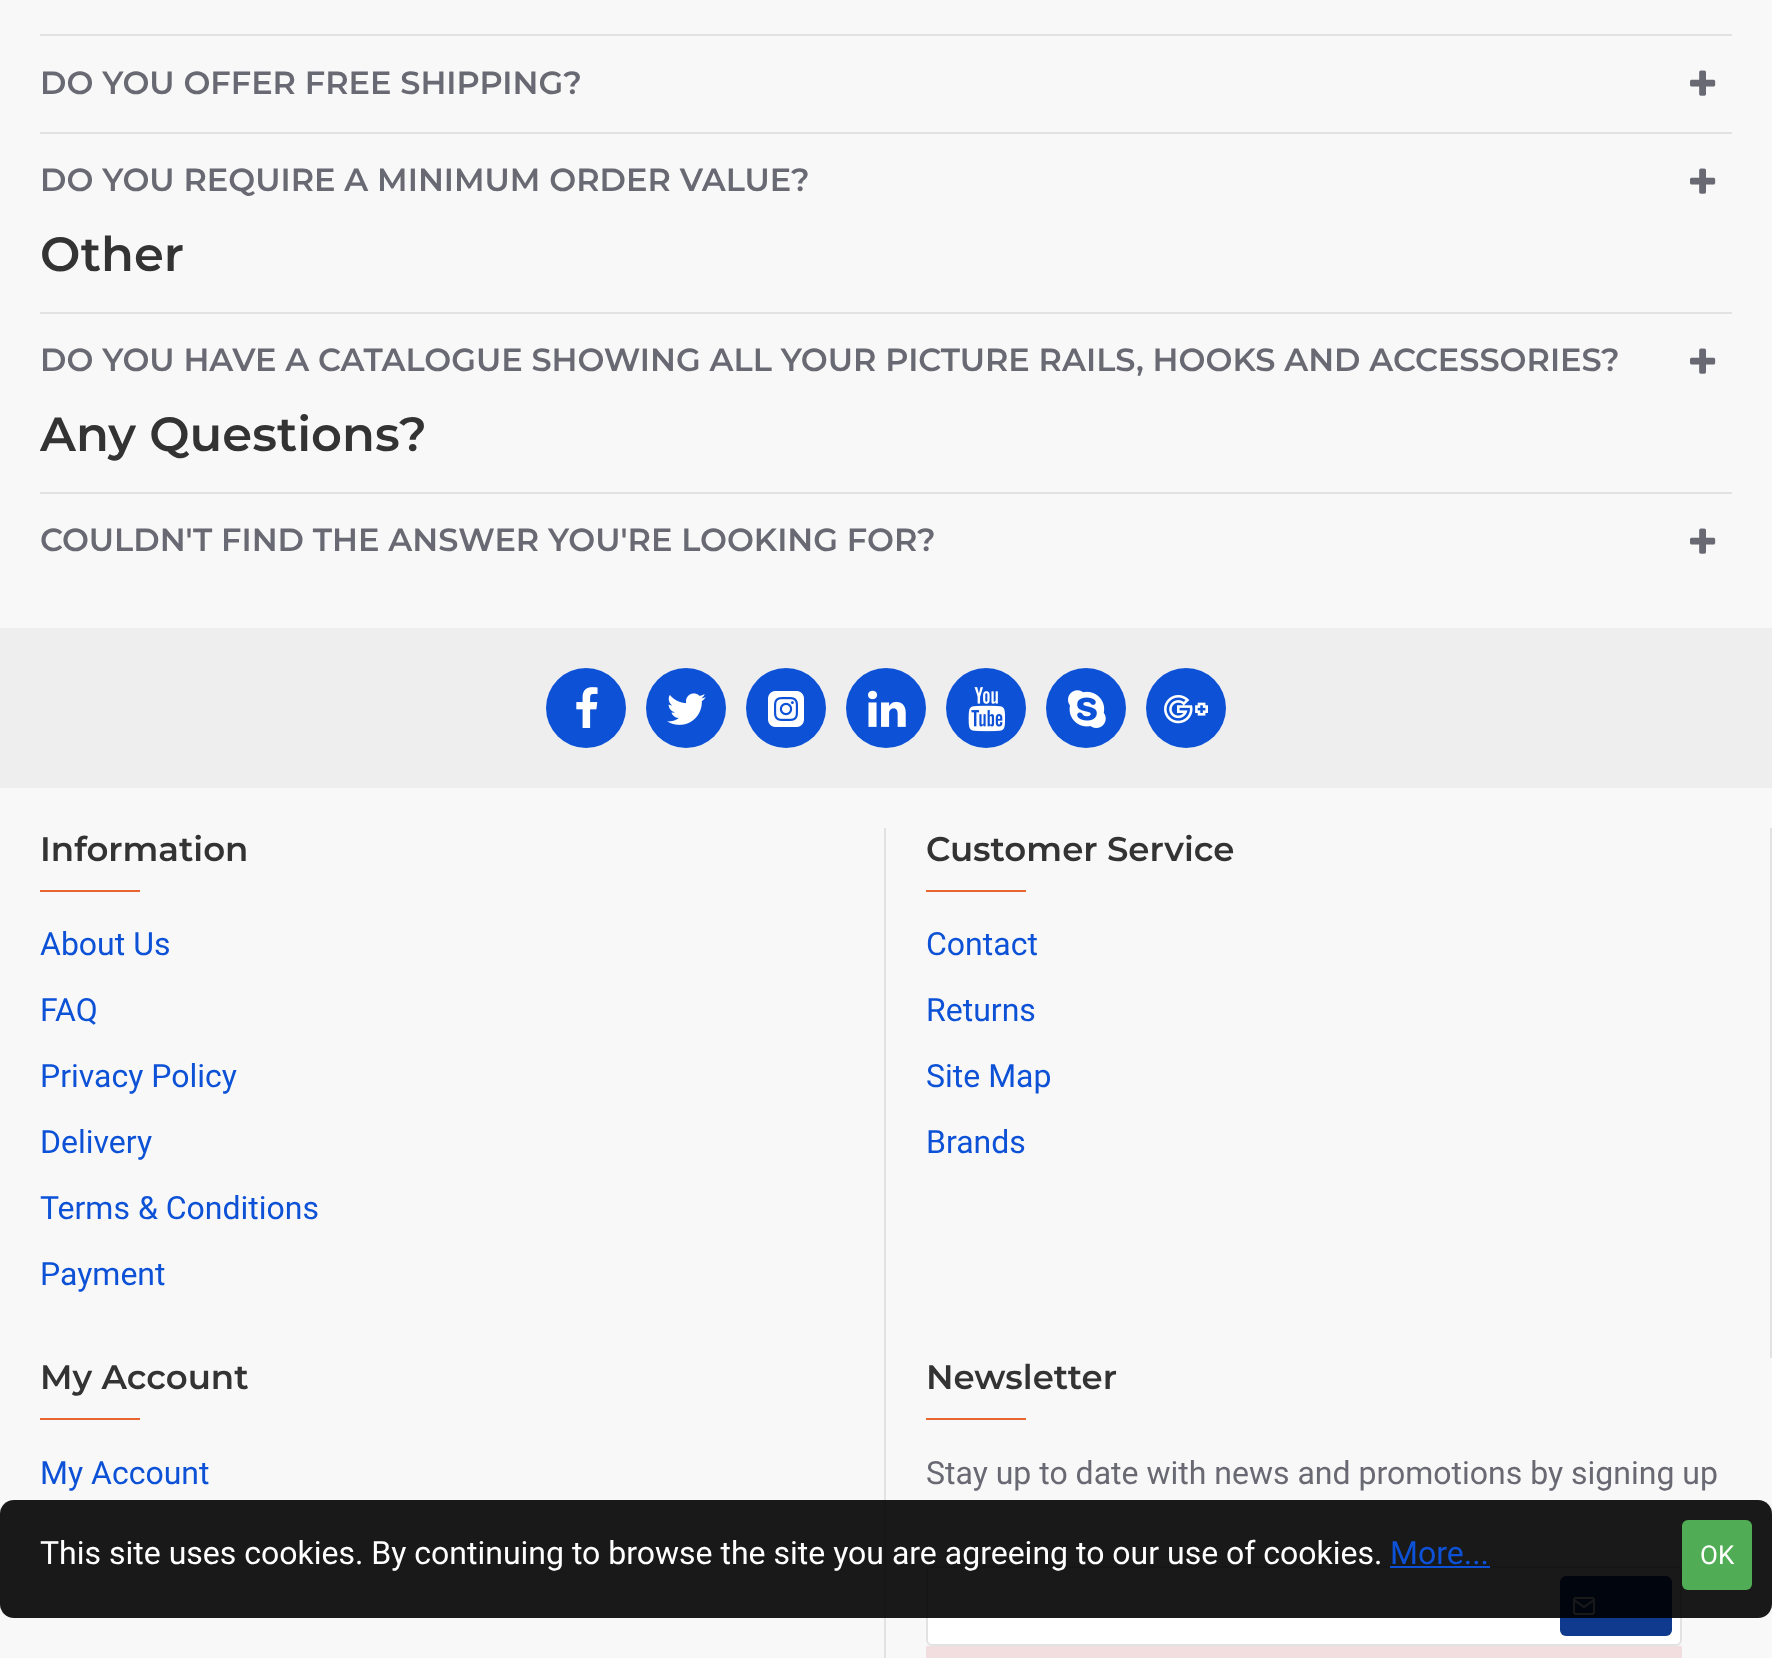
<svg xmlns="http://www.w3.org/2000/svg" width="1772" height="1658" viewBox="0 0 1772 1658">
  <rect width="100%" height="100%" fill="#f8f8f8"/>
  <rect x="40" y="34" width="1692" height="2" fill="#e2e2e2"/>
  <text x="40" y="94" font-family="Montserrat" font-size="32" font-weight="600" fill="#696973">DO YOU OFFER FREE SHIPPING?</text>
  <image x="1690" y="70" width="26" height="26" href="img1.png"/>
  <rect x="40" y="132" width="1692" height="2" fill="#e2e2e2"/>
  <text x="40" y="191" font-family="Montserrat" font-size="32" font-weight="600" fill="#696973">DO YOU REQUIRE A MINIMUM ORDER VALUE?</text>
  <image x="1690" y="168" width="26" height="26" href="img1.png"/>
  <text x="40" y="271" font-family="Montserrat" font-size="48" font-weight="600" fill="#333333">Other</text>
  <rect x="40" y="312" width="1692" height="2" fill="#e2e2e2"/>
  <text x="40" y="371" font-family="Montserrat" font-size="32" font-weight="600" fill="#696973">DO YOU HAVE A CATALOGUE SHOWING ALL YOUR PICTURE RAILS, HOOKS AND ACCESSORIES?</text>
  <image x="1690" y="348" width="26" height="26" href="img1.png"/>
  <text x="40" y="451" font-family="Montserrat" font-size="48" font-weight="600" fill="#333333">Any Questions?</text>
  <rect x="40" y="492" width="1692" height="2" fill="#e2e2e2"/>
  <text x="40" y="551" font-family="Montserrat" font-size="32" font-weight="600" fill="#696973">COULDN'T FIND THE ANSWER YOU'RE LOOKING FOR?</text>
  <image x="1690" y="528" width="26" height="26" href="img1.png"/>
  <rect x="0" y="628" width="1772" height="160" fill="#eeeeee"/>
  <circle cx="586" cy="708" r="40" fill="#0d52d6"/>
  <image x="576" y="687" width="22" height="41" href="img2.png"/>
  <circle cx="686" cy="708" r="40" fill="#0d52d6"/>
  <image x="667" y="693" width="39" height="32" href="img3.png"/>
  <circle cx="786" cy="708" r="40" fill="#0d52d6"/>
  <image x="768" y="691" width="36" height="36" href="img4.png"/>
  <circle cx="886" cy="708" r="40" fill="#0d52d6"/>
  <image x="868" y="690" width="38" height="37" href="img5.png"/>
  <circle cx="986" cy="708" r="40" fill="#0d52d6"/>
  <image x="968" y="687" width="38" height="45" href="img6.png"/>
  <circle cx="1086" cy="708" r="40" fill="#0d52d6"/>
  <image x="1068" y="690" width="38" height="38" href="img7.png"/>
  <circle cx="1186" cy="708" r="40" fill="#0d52d6"/>
  <image x="1164" y="695" width="44" height="29" href="img8.png"/>
  <rect x="884" y="828" width="2" height="830" fill="#e2e2e2"/>
  <text x="40" y="861" font-family="Montserrat" font-size="34" font-weight="600" fill="#333333">Information</text>
  <rect x="40" y="890" width="100" height="2" fill="#e96631"/>
  <text x="40" y="955" font-family="Roboto" font-size="32" fill="#0d52d6">About Us</text>
  <text x="40" y="1021" font-family="Roboto" font-size="32" fill="#0d52d6">FAQ</text>
  <text x="40" y="1087" font-family="Roboto" font-size="32" fill="#0d52d6">Privacy Policy</text>
  <text x="40" y="1153" font-family="Roboto" font-size="32" fill="#0d52d6">Delivery</text>
  <text x="40" y="1219" font-family="Roboto" font-size="32" fill="#0d52d6">Terms &amp; Conditions</text>
  <text x="40" y="1285" font-family="Roboto" font-size="32" fill="#0d52d6">Payment</text>
  <rect x="1770" y="828" width="2" height="530" fill="#e2e2e2"/>
  <text x="926" y="861" font-family="Montserrat" font-size="34" font-weight="600" fill="#333333">Customer Service</text>
  <rect x="926" y="890" width="100" height="2" fill="#e96631"/>
  <text x="926" y="955" font-family="Roboto" font-size="32" fill="#0d52d6">Contact</text>
  <text x="926" y="1021" font-family="Roboto" font-size="32" fill="#0d52d6">Returns</text>
  <text x="926" y="1087" font-family="Roboto" font-size="32" fill="#0d52d6">Site Map</text>
  <text x="926" y="1153" font-family="Roboto" font-size="32" fill="#0d52d6">Brands</text>
  <text x="40" y="1389" font-family="Montserrat" font-size="34" font-weight="600" fill="#333333">My Account</text>
  <rect x="40" y="1418" width="100" height="2" fill="#e96631"/>
  <text x="40" y="1484" font-family="Roboto" font-size="32" fill="#0d52d6">My Account</text>
  <text x="926" y="1389" font-family="Montserrat" font-size="34" font-weight="600" fill="#333333">Newsletter</text>
  <rect x="926" y="1418" width="100" height="2" fill="#e96631"/>
  <text x="926" y="1484" font-family="Roboto" font-size="32" fill="#696973">Stay up to date with news and promotions by signing up</text>
  <rect x="927" y="1567" width="754" height="78" rx="5" fill="#ffffff" stroke="#e2e2e2" stroke-width="2"/>
  <rect x="1560" y="1576" width="112" height="60" rx="6" fill="#0f3a8d"/>
  <image x="1573" y="1597" width="22" height="18" href="img9.png"/>
  <rect x="926" y="1646" width="756" height="12" fill="#f2dede"/>
  <rect x="0" y="1500" width="1772" height="118" rx="14" fill="#000000" fill-opacity="0.9"/>
  <text x="40" y="1564" font-family="Roboto" font-size="32" fill="#ffffff">This site uses cookies. By continuing to browse the site you are agreeing to our use of cookies.</text>
  <text x="1390" y="1564" font-family="Roboto" font-size="32" fill="#0d52d6">More...</text>
  <rect x="1390" y="1566" width="100" height="2" fill="#0d52d6"/>
  <rect x="1682" y="1520" width="70" height="70" rx="6" fill="#50ad55"/>
  <text x="1700" y="1564" font-family="Roboto" font-size="26" fill="#ffffff">OK</text>
</svg>
